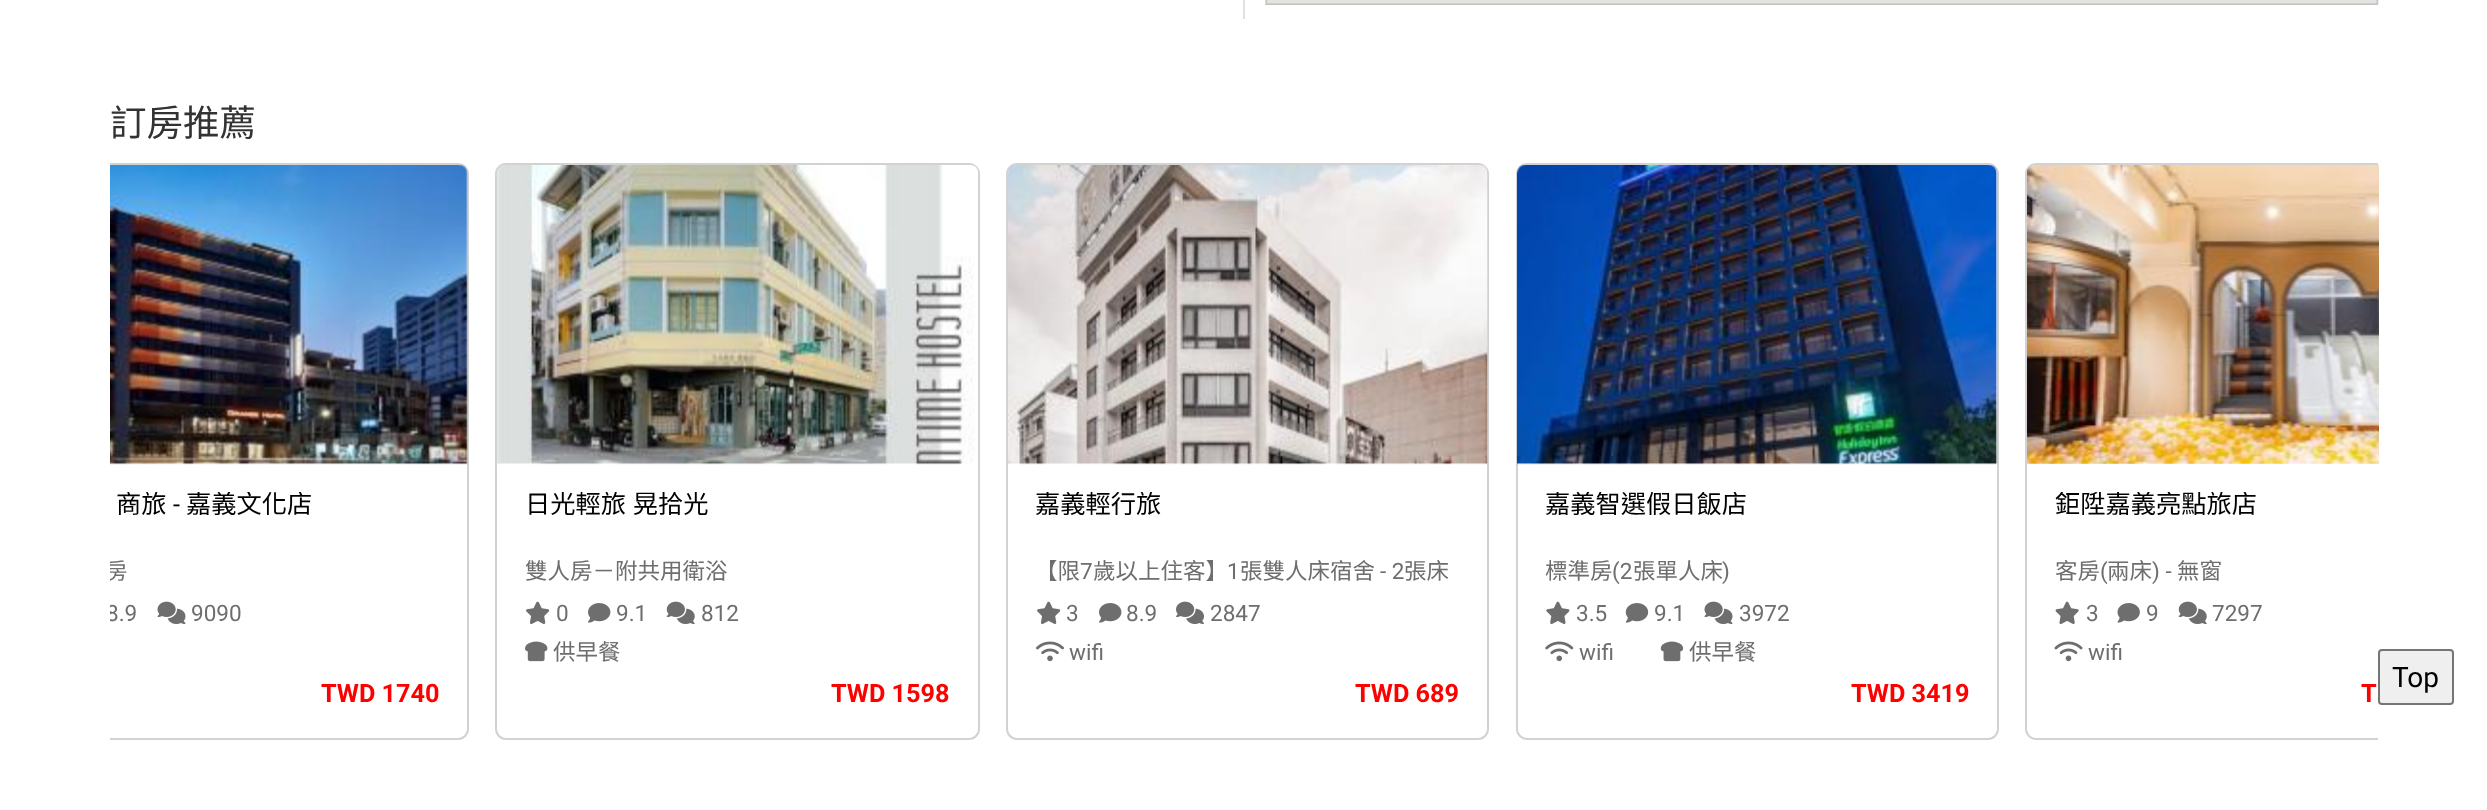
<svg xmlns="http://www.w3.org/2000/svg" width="2487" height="810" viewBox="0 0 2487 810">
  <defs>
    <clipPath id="clip1"><rect x="110" y="161" width="2268" height="581"/></clipPath>
    <clipPath id="clip2"><rect x="110" y="492" width="329" height="56"/></clipPath>
    <clipPath id="clip3"><rect x="110" y="557" width="329" height="33"/></clipPath>
    <clipPath id="clip4"><rect x="525" y="492" width="425" height="56"/></clipPath>
    <clipPath id="clip5"><rect x="1036" y="492" width="424" height="56"/></clipPath>
    <clipPath id="clip6"><rect x="1545" y="492" width="424" height="56"/></clipPath>
    <clipPath id="clip7"><rect x="2055" y="492" width="323" height="56"/></clipPath>
  </defs>
  <rect width="100%" height="100%" fill="#ffffff"/>
  <rect x="1243" y="0" width="2" height="19" fill="#dee2e6"/>
  <image x="1265" y="0" width="1114" height="5" href="img1.png"/>
  <text x="110" y="136" font-family="Noto Sans CJK TC" font-size="36.5" fill="#333333">訂房推薦</text>
  <g clip-path="url(#clip1)">
    <rect x="-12" y="164" width="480" height="575" rx="10" fill="none" stroke="#d2d2d2" stroke-width="2"/>
  </g>
  <image x="110" y="165" width="358" height="300" href="img2.png"/>
  <g clip-path="url(#clip2)">
    <text x="116" y="513" font-family="Noto Sans CJK TC" font-size="25.25" fill="#000000">商旅</text>
  </g>
  <text x="173" y="513" font-family="Roboto" font-size="25.25" fill="#000000">-</text>
  <g clip-path="url(#clip2)">
    <text x="186" y="513" font-family="Noto Sans CJK TC" font-size="25.25" fill="#000000">嘉義文化店</text>
  </g>
  <g clip-path="url(#clip3)">
    <text x="105" y="579" font-family="Noto Sans CJK TC" font-size="22.5" fill="#6e6e6e">房</text>
  </g>
  <g clip-path="url(#clip1)">
    <text x="106" y="621" font-family="Roboto" font-size="22.5" fill="#6e6e6e">8.9</text>
  </g>
  <image x="157" y="601" width="29" height="23" href="img3.png"/>
  <text x="191" y="621" font-family="Roboto" font-size="22.5" fill="#6e6e6e">9090</text>
  <text x="321" y="702" font-family="Roboto" font-size="25.25" font-weight="bold" fill="#ff0000">TWD 1740</text>
  <rect x="496" y="164" width="483" height="575" rx="10" fill="none" stroke="#d2d2d2" stroke-width="2"/>
  <image x="497" y="165" width="481" height="300" href="img4.png"/>
  <g clip-path="url(#clip4)">
    <text x="525" y="513" word-spacing="1" font-family="Noto Sans CJK TC" font-size="25.25" fill="#000000">日光輕旅 晃拾光</text>
  </g>
  <text x="525" y="579" font-family="Noto Sans CJK TC" font-size="22.5" fill="#6e6e6e">雙人房－附共用衛浴</text>
  <image x="526" y="601" width="24" height="23" href="img5.png"/>
  <text x="556" y="621" font-family="Roboto" font-size="22.5" fill="#6e6e6e">0</text>
  <image x="588" y="603" width="23" height="20" href="img6.png"/>
  <text x="616" y="621" font-family="Roboto" font-size="22.5" fill="#6e6e6e">9.1</text>
  <image x="666" y="601" width="29" height="23" href="img7.png"/>
  <text x="701" y="621" font-family="Roboto" font-size="22.5" fill="#6e6e6e">812</text>
  <image x="525" y="641" width="23" height="21" href="img8.png"/>
  <text x="553" y="660" font-family="Noto Sans CJK TC" font-size="22.5" fill="#6e6e6e">供早餐</text>
  <text x="831" y="702" font-family="Roboto" font-size="25.25" font-weight="bold" fill="#ff0000">TWD 1598</text>
  <rect x="1007" y="164" width="481" height="575" rx="10" fill="none" stroke="#d2d2d2" stroke-width="2"/>
  <image x="1008" y="165" width="480" height="300" href="img9.png"/>
  <g clip-path="url(#clip5)">
    <text x="1035" y="513" font-family="Noto Sans CJK TC" font-size="25.25" fill="#000000">嘉義輕行旅</text>
  </g>
  <text x="1035" y="579" font-family="Noto Sans CJK TC" font-size="22.5" fill="#6e6e6e">【限</text>
  <text x="1080" y="579" font-family="Roboto" font-size="22.5" fill="#6e6e6e">7</text>
  <text x="1093" y="579" font-family="Noto Sans CJK TC" font-size="22.5" fill="#6e6e6e">歲以上住客】</text>
  <text x="1227" y="579" font-family="Roboto" font-size="22.5" fill="#6e6e6e">1</text>
  <text x="1240" y="579" font-family="Noto Sans CJK TC" font-size="22.5" fill="#6e6e6e">張雙人床宿舍</text>
  <text x="1380" y="579" font-family="Roboto" font-size="22.5" fill="#6e6e6e">- 2</text>
  <text x="1404" y="579" font-family="Noto Sans CJK TC" font-size="22.5" fill="#6e6e6e">張床</text>
  <image x="1037" y="601" width="24" height="23" href="img5.png"/>
  <text x="1066" y="621" font-family="Roboto" font-size="22.5" fill="#6e6e6e">3</text>
  <image x="1099" y="603" width="23" height="20" href="img6.png"/>
  <text x="1126" y="621" font-family="Roboto" font-size="22.5" fill="#6e6e6e">8.9</text>
  <image x="1176" y="601" width="28" height="23" href="img10.png"/>
  <text x="1210" y="621" font-family="Roboto" font-size="22.5" fill="#6e6e6e">2847</text>
  <image x="1036" y="641" width="28" height="21" href="img11.png"/>
  <text x="1069" y="660" font-family="Roboto" font-size="22.5" fill="#6e6e6e">wifi</text>
  <text x="1355" y="702" font-family="Roboto" font-size="25.25" font-weight="bold" fill="#ff0000">TWD 689</text>
  <rect x="1517" y="164" width="481" height="575" rx="10" fill="none" stroke="#d2d2d2" stroke-width="2"/>
  <image x="1517" y="165" width="481" height="300" href="img12.png"/>
  <g clip-path="url(#clip6)">
    <text x="1545" y="513" font-family="Noto Sans CJK TC" font-size="25.25" fill="#000000">嘉義智選假日飯店</text>
  </g>
  <text x="1545" y="579" font-family="Noto Sans CJK TC" font-size="22.5" fill="#6e6e6e">標準房</text>
  <text x="1612" y="579" font-family="Roboto" font-size="22.5" fill="#6e6e6e">(2</text>
  <text x="1633" y="579" font-family="Noto Sans CJK TC" font-size="22.5" fill="#6e6e6e">張單人床</text>
  <text x="1722" y="579" font-family="Roboto" font-size="22.5" fill="#6e6e6e">)</text>
  <image x="1546" y="601" width="24" height="23" href="img13.png"/>
  <text x="1576" y="621" font-family="Roboto" font-size="22.5" fill="#6e6e6e">3.5</text>
  <image x="1625" y="603" width="24" height="20" href="img14.png"/>
  <text x="1654" y="621" font-family="Roboto" font-size="22.5" fill="#6e6e6e">9.1</text>
  <image x="1704" y="601" width="29" height="23" href="img3.png"/>
  <text x="1739" y="621" font-family="Roboto" font-size="22.5" fill="#6e6e6e">3972</text>
  <image x="1545" y="641" width="29" height="21" href="img15.png"/>
  <text x="1579" y="660" font-family="Roboto" font-size="22.5" fill="#6e6e6e">wifi</text>
  <image x="1660" y="641" width="24" height="21" href="img16.png"/>
  <text x="1689" y="660" font-family="Noto Sans CJK TC" font-size="22.5" fill="#6e6e6e">供早餐</text>
  <text x="1851" y="702" font-family="Roboto" font-size="25.25" font-weight="bold" fill="#ff0000">TWD 3419</text>
  <g clip-path="url(#clip1)">
    <rect x="2026" y="164" width="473" height="575" rx="10" fill="none" stroke="#d2d2d2" stroke-width="2"/>
  </g>
  <image x="2027" y="165" width="352" height="299" href="img17.png"/>
  <g clip-path="url(#clip7)">
    <text x="2055" y="513" font-family="Noto Sans CJK TC" font-size="25.25" fill="#000000">鉅陞嘉義亮點旅店</text>
  </g>
  <text x="2055" y="579" font-family="Noto Sans CJK TC" font-size="22.5" fill="#6e6e6e">客房</text>
  <text x="2100" y="579" font-family="Roboto" font-size="22.5" fill="#6e6e6e">(</text>
  <text x="2107" y="579" font-family="Noto Sans CJK TC" font-size="22.5" fill="#6e6e6e">兩床</text>
  <text x="2152" y="579" font-family="Roboto" font-size="22.5" fill="#6e6e6e">) -</text>
  <text x="2177" y="579" font-family="Noto Sans CJK TC" font-size="22.5" fill="#6e6e6e">無窗</text>
  <image x="2055" y="601" width="24" height="23" href="img18.png"/>
  <text x="2086" y="621" font-family="Roboto" font-size="22.5" fill="#6e6e6e">3</text>
  <image x="2117" y="603" width="23" height="20" href="img19.png"/>
  <text x="2146" y="621" font-family="Roboto" font-size="22.5" fill="#6e6e6e">9</text>
  <image x="2178" y="601" width="29" height="23" href="img7.png"/>
  <text x="2212" y="621" font-family="Roboto" font-size="22.5" fill="#6e6e6e">7297</text>
  <image x="2054" y="641" width="29" height="21" href="img20.png"/>
  <text x="2088" y="660" font-family="Roboto" font-size="22.5" fill="#6e6e6e">wifi</text>
  <text x="2361" y="702" font-family="Roboto" font-size="25.25" font-weight="bold" fill="#ff0000">T</text>
  <rect x="2379" y="650" width="74" height="54" rx="3" fill="#efefef" stroke="#767676" stroke-width="2"/>
  <text x="2392" y="687" font-family="Roboto" font-size="28" fill="#000000">Top</text>
</svg>
